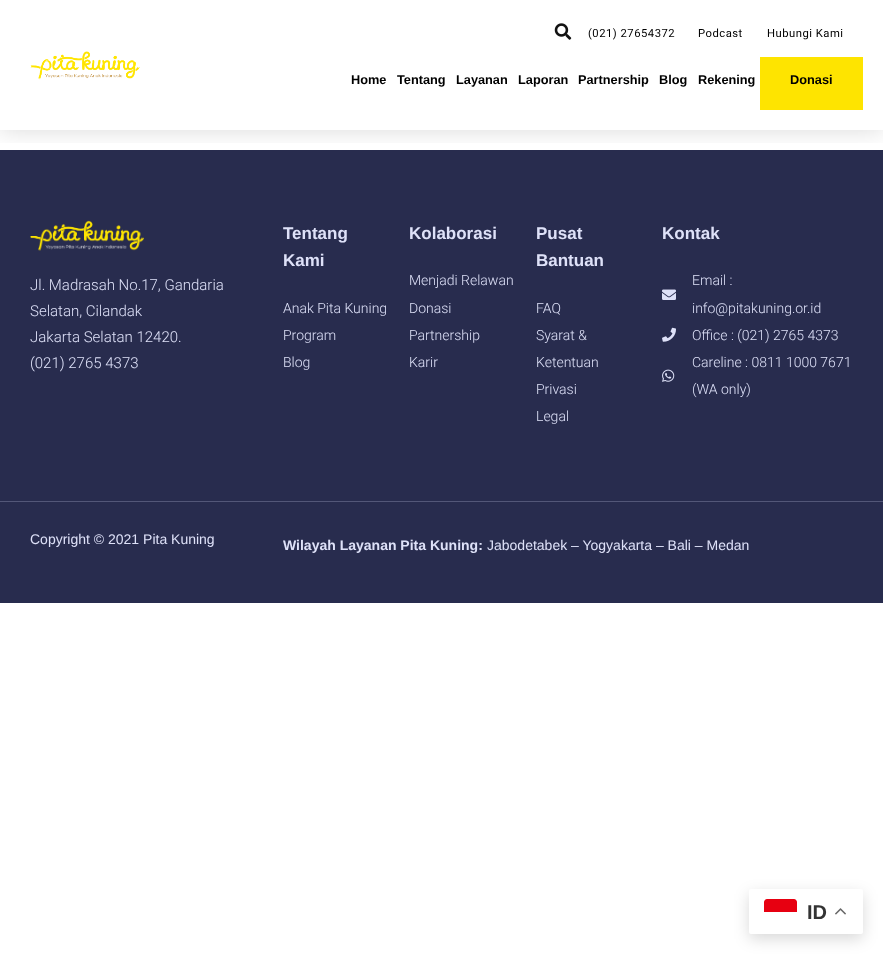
<svg xmlns="http://www.w3.org/2000/svg" width="883" height="962" viewBox="0 0 883 962">
  <defs>
    <clipPath id="clip1"><rect x="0" y="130" width="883" height="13"/></clipPath>
    <filter id="blur1" x="-50%" y="-200%" width="200%" height="500%"><feGaussianBlur stdDeviation="12"/></filter>
    <filter id="blur2" x="-50%" y="-200%" width="200%" height="500%"><feGaussianBlur stdDeviation="7.5"/></filter>
  </defs>
  <rect width="100%" height="100%" fill="#ffffff"/>
  <rect x="0" y="150" width="883" height="351" fill="#282c4e"/>
  <g clip-path="url(#clip1)">
    <rect x="0" y="0" width="883" height="130" fill="#000000" fill-opacity="0.15" filter="url(#blur1)"/>
  </g>
  <image x="30" y="51" width="110" height="29" href="img1.png"/>
  <image x="554" y="23" width="18" height="17" href="img2.png"/>
  <text x="588" y="37" font-family="Roboto" font-size="11.25" letter-spacing="0.5" fill="#000000">(021) 27654372</text>
  <text x="698" y="37" font-family="Roboto" font-size="11.25" letter-spacing="0.5" fill="#000000">Podcast</text>
  <text x="767" y="37" font-family="Roboto" font-size="11.25" letter-spacing="0.5" fill="#000000">Hubungi Kami</text>
  <text x="351" y="84" font-family="Liberation Sans" font-size="12.75" font-weight="bold" fill="#000000">Home</text>
  <text x="397" y="84" font-family="Liberation Sans" font-size="12.75" font-weight="bold" fill="#000000">Tentang</text>
  <text x="456" y="84" font-family="Liberation Sans" font-size="12.75" font-weight="bold" fill="#000000">Layanan</text>
  <text x="518" y="84" font-family="Liberation Sans" font-size="12.75" font-weight="bold" fill="#000000">Laporan</text>
  <text x="578" y="84" font-family="Liberation Sans" font-size="12.75" font-weight="bold" fill="#000000">Partnership</text>
  <text x="659" y="84" font-family="Liberation Sans" font-size="12.75" font-weight="bold" fill="#000000">Blog</text>
  <text x="698" y="84" font-family="Liberation Sans" font-size="12.75" font-weight="bold" fill="#000000">Rekening</text>
  <rect x="760" y="57" width="103" height="53" fill="#fee400"/>
  <text x="790" y="84" font-family="Liberation Sans" font-size="12.75" font-weight="bold" fill="#000000">Donasi</text>
  <image x="30" y="220" width="114" height="31" href="img3.png"/>
  <text x="30" y="290" font-family="Roboto" font-size="15" font-weight="300" fill="#dee1f8">Jl. Madrasah No.17, Gandaria</text>
  <text x="30" y="316" font-family="Roboto" font-size="15" font-weight="300" fill="#dee1f8">Selatan, Cilandak</text>
  <text x="30" y="342" font-family="Roboto" font-size="15" font-weight="300" fill="#dee1f8">Jakarta Selatan 12420.</text>
  <text x="30" y="368" font-family="Roboto" font-size="15" font-weight="300" fill="#dee1f8">(021) 2765 4373</text>
  <text x="283" y="239" font-family="Liberation Sans" font-size="17" font-weight="bold" fill="#dee1f8">Tentang</text>
  <text x="283" y="266" font-family="Liberation Sans" font-size="17" font-weight="bold" fill="#dee1f8">Kami</text>
  <text x="283" y="313" font-family="Roboto" font-size="14" font-weight="300" fill="#dee1f8">Anak Pita Kuning</text>
  <text x="283" y="340" font-family="Roboto" font-size="14" font-weight="300" fill="#dee1f8">Program</text>
  <text x="283" y="367" font-family="Roboto" font-size="14" font-weight="300" fill="#dee1f8">Blog</text>
  <text x="409" y="239" font-family="Liberation Sans" font-size="17" font-weight="bold" fill="#dee1f8">Kolaborasi</text>
  <text x="409" y="285" font-family="Roboto" font-size="14" font-weight="300" fill="#dee1f8">Menjadi Relawan</text>
  <text x="409" y="313" font-family="Roboto" font-size="14" font-weight="300" fill="#dee1f8">Donasi</text>
  <text x="409" y="340" font-family="Roboto" font-size="14" font-weight="300" fill="#dee1f8">Partnership</text>
  <text x="409" y="367" font-family="Roboto" font-size="14" font-weight="300" fill="#dee1f8">Karir</text>
  <text x="536" y="239" font-family="Liberation Sans" font-size="17" font-weight="bold" fill="#dee1f8">Pusat</text>
  <text x="536" y="266" font-family="Liberation Sans" font-size="17" font-weight="bold" fill="#dee1f8">Bantuan</text>
  <text x="536" y="313" font-family="Roboto" font-size="14" font-weight="300" fill="#dee1f8">FAQ</text>
  <text x="536" y="340" font-family="Roboto" font-size="14" font-weight="300" fill="#dee1f8">Syarat &amp;</text>
  <text x="536" y="367" font-family="Roboto" font-size="14" font-weight="300" fill="#dee1f8">Ketentuan</text>
  <text x="536" y="394" font-family="Roboto" font-size="14" font-weight="300" fill="#dee1f8">Privasi</text>
  <text x="536" y="421" font-family="Roboto" font-size="14" font-weight="300" fill="#dee1f8">Legal</text>
  <text x="662" y="239" font-family="Liberation Sans" font-size="17" font-weight="bold" fill="#dee1f8">Kontak</text>
  <image x="662" y="289" width="14" height="11" href="img4.png"/>
  <text x="692" y="285" font-family="Roboto" font-size="14" font-weight="300" fill="#dee1f8">Email :</text>
  <text x="692" y="313" font-family="Roboto" font-size="14" font-weight="300" fill="#dee1f8">info@pitakuning.or.id</text>
  <image x="662" y="327" width="14" height="15" href="img5.png"/>
  <text x="692" y="340" font-family="Roboto" font-size="14" font-weight="300" fill="#dee1f8">Office : (021) 2765 4373</text>
  <image x="662" y="369" width="13" height="13" href="img6.png"/>
  <text x="692" y="367" font-family="Roboto" font-size="14" font-weight="300" fill="#dee1f8">Careline : 0811 1000 7671</text>
  <text x="692" y="394" font-family="Roboto" font-size="14" font-weight="300" fill="#dee1f8">(WA only)</text>
  <rect x="0" y="502" width="883" height="101" fill="#282c4e"/>
  <rect x="0" y="501" width="883" height="1" fill="#535778"/>
  <text x="30" y="544" font-family="Liberation Sans" font-size="14" fill="#dee1f8">Copyright © 2021 Pita Kuning</text>
  <text x="283" y="550" font-family="Liberation Sans" font-size="14" font-weight="bold" fill="#dee1f8">Wilayah Layanan Pita Kuning:</text>
  <text x="487" y="550" font-family="Liberation Sans" font-size="14" fill="#dee1f8">Jabodetabek – Yogyakarta – Bali – Medan</text>
  <rect x="749" y="894" width="114" height="45" rx="2" fill="#000000" fill-opacity="0.15" filter="url(#blur2)"/>
  <rect x="749" y="889" width="114" height="45" rx="2" fill="#ffffff"/>
  <path d="M767 899H794C795.5 899 797 900.5 797 902V912H764V902C764 900.5 765.5 899 767 899Z" fill="#e70011"/>
  <text x="807" y="919" font-family="Liberation Sans" font-size="20" font-weight="bold" fill="#333333">ID</text>
  <image x="835" y="908" width="11" height="7" href="img7.png"/>
</svg>
